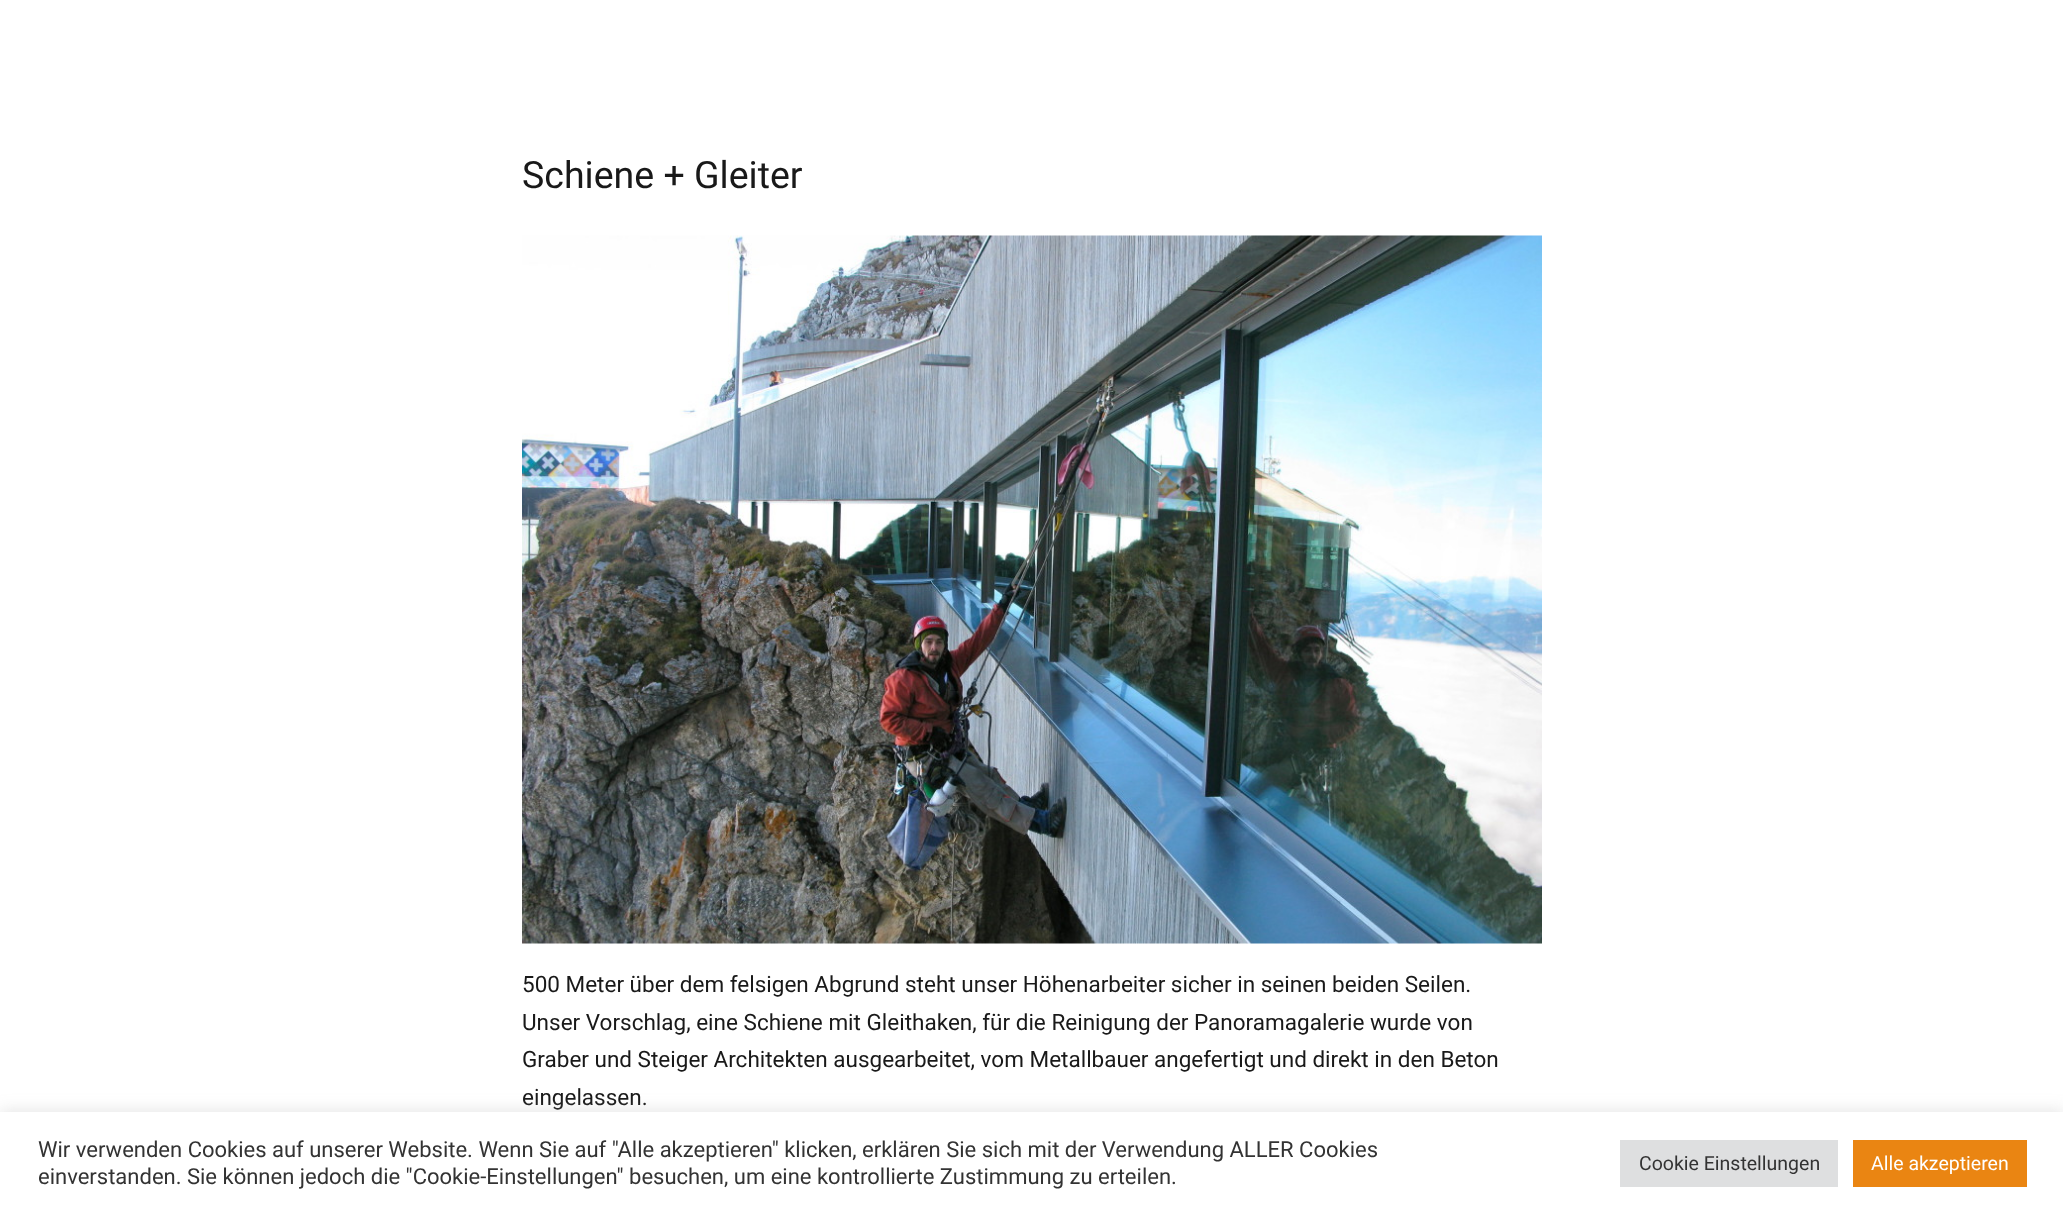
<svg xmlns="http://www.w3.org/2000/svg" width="2063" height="1215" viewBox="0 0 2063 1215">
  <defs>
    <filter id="blur1" x="-50%" y="-200%" width="200%" height="500%"><feGaussianBlur stdDeviation="7.5"/></filter>
  </defs>
  <rect width="100%" height="100%" fill="#ffffff"/>
  <text x="522" y="188" font-family="Roboto" font-size="37.5" fill="#191919">Schiene + Gleiter</text>
  <image x="522" y="235" width="1020" height="709" href="img1.png"/>
  <text x="522" y="992" font-family="Roboto" font-size="22.5" fill="#191919">500 Meter über dem felsigen Abgrund steht unser Höhenarbeiter sicher in seinen beiden Seilen.</text>
  <text x="522" y="1030" font-family="Roboto" font-size="22.5" fill="#191919">Unser Vorschlag, eine Schiene mit Gleithaken, für die Reinigung der Panoramagalerie wurde von</text>
  <text x="522" y="1067" font-family="Roboto" font-size="22.5" fill="#191919">Graber und Steiger Architekten ausgearbeitet, vom Metallbauer angefertigt und direkt in den Beton</text>
  <text x="522" y="1105" font-family="Roboto" font-size="22.5" fill="#191919">eingelassen.</text>
  <rect x="0" y="1110" width="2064" height="104" fill="#acabab" fill-opacity="0.3" filter="url(#blur1)"/>
  <rect x="0" y="1112" width="2063" height="103" fill="#ffffff"/>
  <text x="38" y="1157" font-family="Roboto" font-size="22" fill="#333333">Wir verwenden Cookies auf unserer Website. Wenn Sie auf "Alle akzeptieren" klicken, erklären Sie sich mit der Verwendung ALLER Cookies</text>
  <text x="38" y="1184" font-family="Roboto" font-size="22" fill="#333333">einverstanden. Sie können jedoch die "Cookie-Einstellungen" besuchen, um eine kontrollierte Zustimmung zu erteilen.</text>
  <rect x="1620" y="1140" width="218" height="47" fill="#dedfe0"/>
  <text x="1639" y="1170" font-family="Roboto" font-size="19.5" fill="#333333">Cookie Einstellungen</text>
  <rect x="1853" y="1140" width="174" height="47" fill="#ea8512"/>
  <text x="1871" y="1170" font-family="Roboto" font-size="19.5" fill="#ffffff">Alle akzeptieren</text>
</svg>
